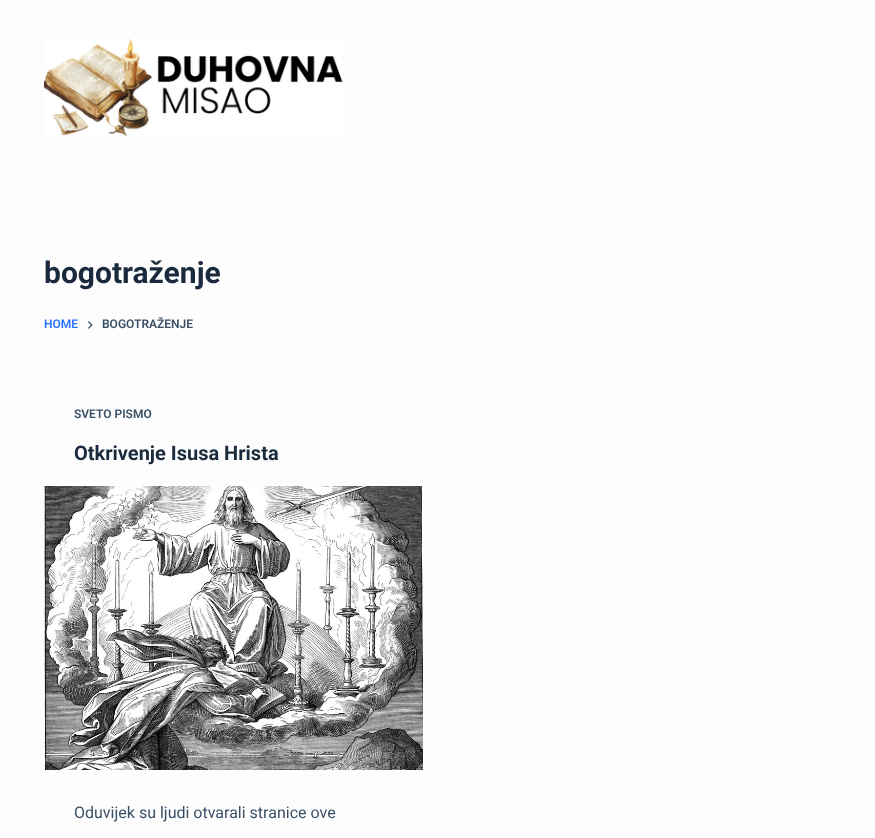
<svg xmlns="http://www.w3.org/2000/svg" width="875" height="838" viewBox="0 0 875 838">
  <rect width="100%" height="100%" fill="#fdfdfe"/>
  <image x="44" y="37" width="299" height="100" href="img1.png"/>
  <text x="44" y="283" font-family="Roboto" font-size="30" font-weight="bold" fill="#192a3d">bogotraženje</text>
  <text x="44" y="328" font-family="Roboto" font-size="12" font-weight="600" fill="#2872fa">HOME</text>
  <image x="88" y="321" width="5" height="8" href="img2.png"/>
  <text x="102" y="328" font-family="Roboto" font-size="12" font-weight="600" fill="#3a4f66">BOGOTRAŽENJE</text>
  <text x="74" y="418" font-family="Roboto" font-size="12" font-weight="600" fill="#3a4f66">SVETO PISMO</text>
  <text x="74" y="460" font-family="Roboto" font-size="20" font-weight="bold" fill="#192a3d">Otkrivenje Isusa Hrista</text>
  <image x="44" y="486" width="379" height="284" href="img3.png"/>
  <text x="74" y="818" font-family="Roboto" font-size="16" fill="#3a4f66">Oduvijek su ljudi otvarali stranice ove</text>
</svg>
